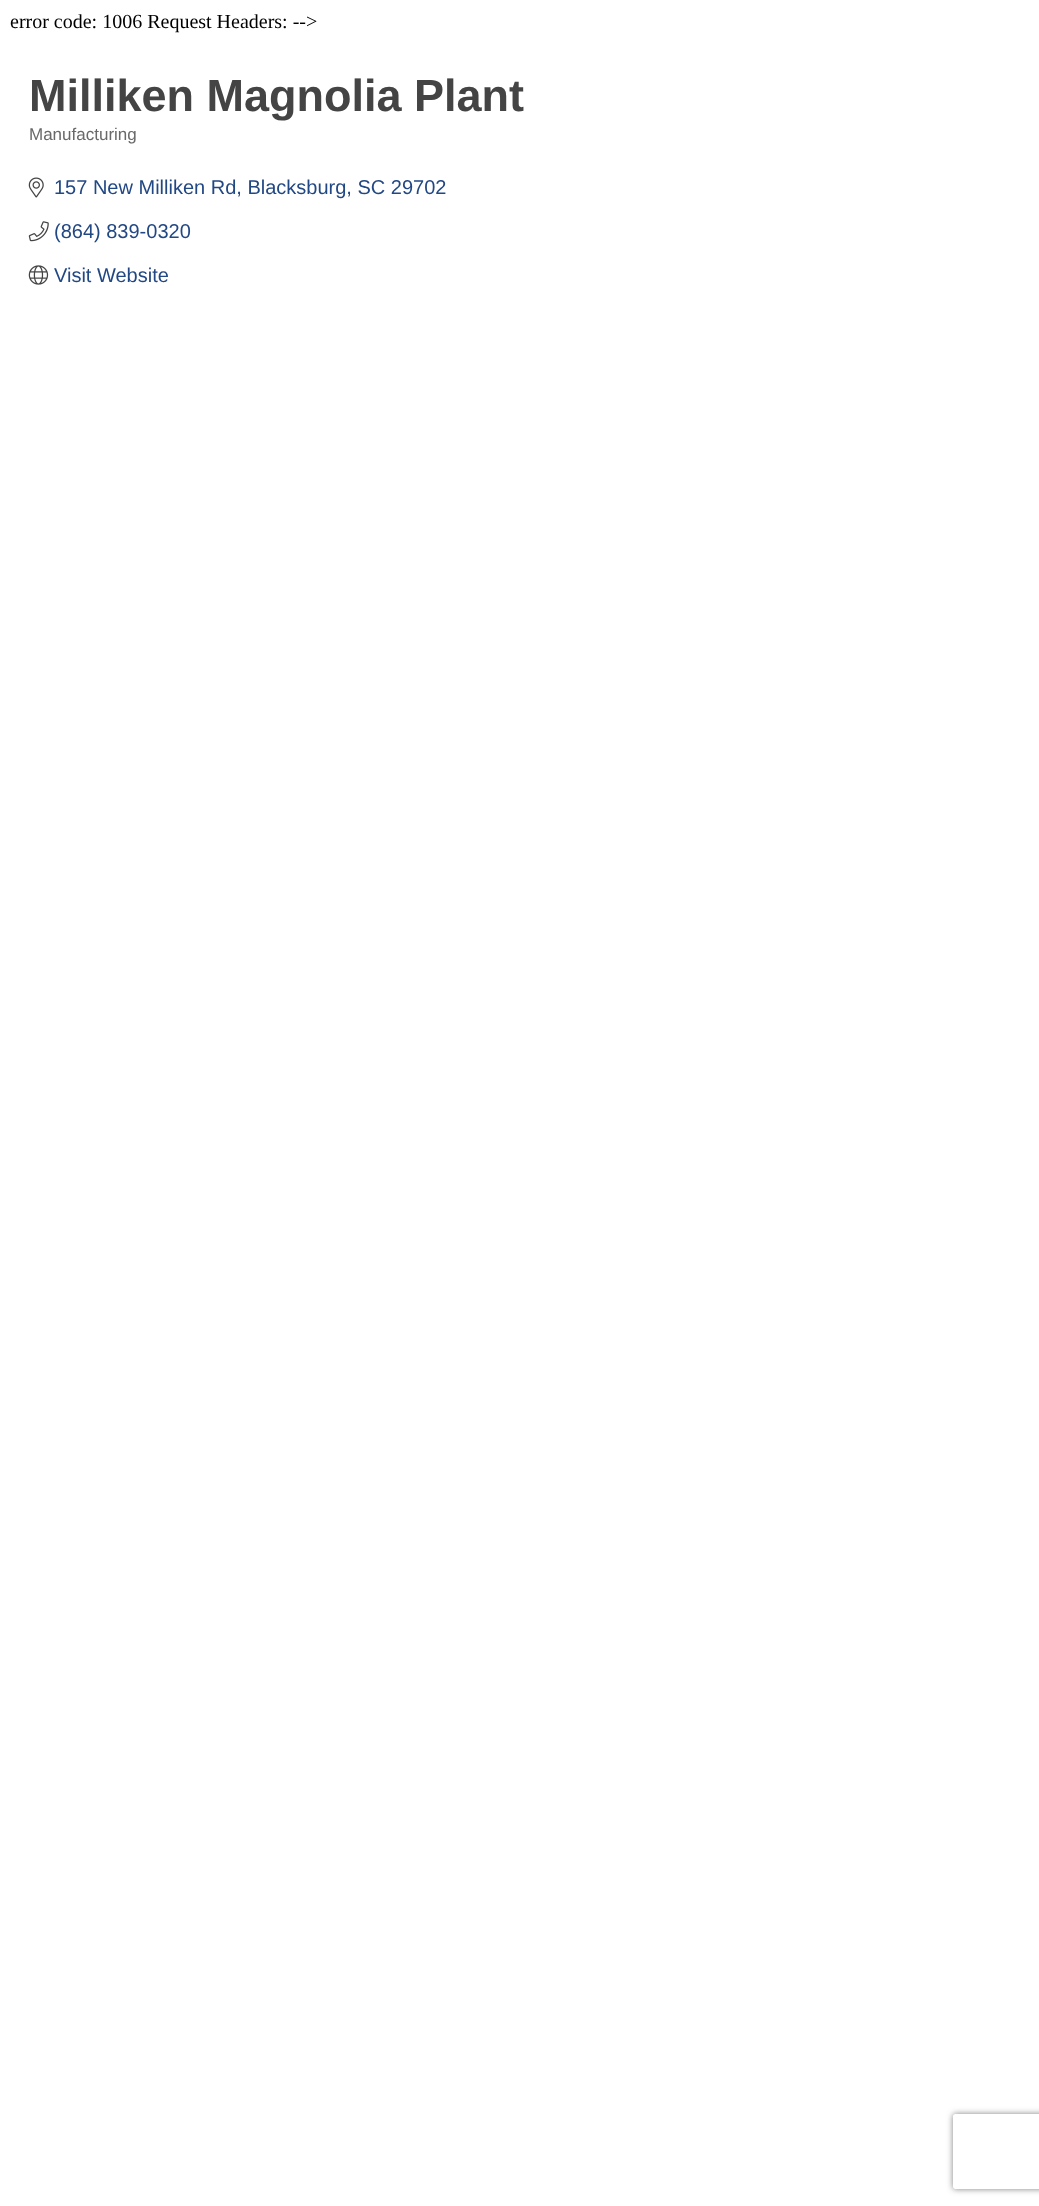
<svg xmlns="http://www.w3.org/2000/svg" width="1039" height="2206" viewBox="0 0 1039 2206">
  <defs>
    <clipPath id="clip1"><path d="M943 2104H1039V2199H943ZM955.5 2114H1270.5C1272 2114 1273 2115 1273 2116.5V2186.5C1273 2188 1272 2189 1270.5 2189H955.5C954 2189 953 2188 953 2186.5V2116.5C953 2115 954 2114 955.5 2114Z" clip-rule="evenodd"/></clipPath>
    <filter id="blur1" x="-50%" y="-200%" width="200%" height="500%"><feGaussianBlur stdDeviation="3"/></filter>
  </defs>
  <rect width="100%" height="100%" fill="#ffffff"/>
  <text x="10" y="28" font-family="Liberation Serif" font-size="20" fill="#000000">error code: 1006 Request Headers: --&gt;</text>
  <text x="29" y="111" font-family="Liberation Sans" font-size="45" font-weight="bold" fill="#444444">Milliken Magnolia Plant</text>
  <text x="29" y="140" font-family="Liberation Sans" font-size="17" fill="#696969">Manufacturing</text>
  <image x="28" y="177" width="16" height="21" href="img1.png"/>
  <text x="54" y="194" font-family="Liberation Sans" font-size="20" fill="#224884">157 New Milliken Rd, Blacksburg, SC 29702</text>
  <image x="28" y="221" width="21" height="21" href="img2.png"/>
  <text x="54" y="238" font-family="Liberation Sans" font-size="20" fill="#224884">(864) 839-0320</text>
  <image x="28" y="265" width="21" height="20" href="img3.png"/>
  <text x="54" y="282" font-family="Liberation Sans" font-size="20" fill="#224884">Visit Website</text>
  <g clip-path="url(#clip1)">
    <rect x="953" y="2114" width="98" height="75" rx="2.5" fill="#808080" filter="url(#blur1)"/>
  </g>
</svg>
